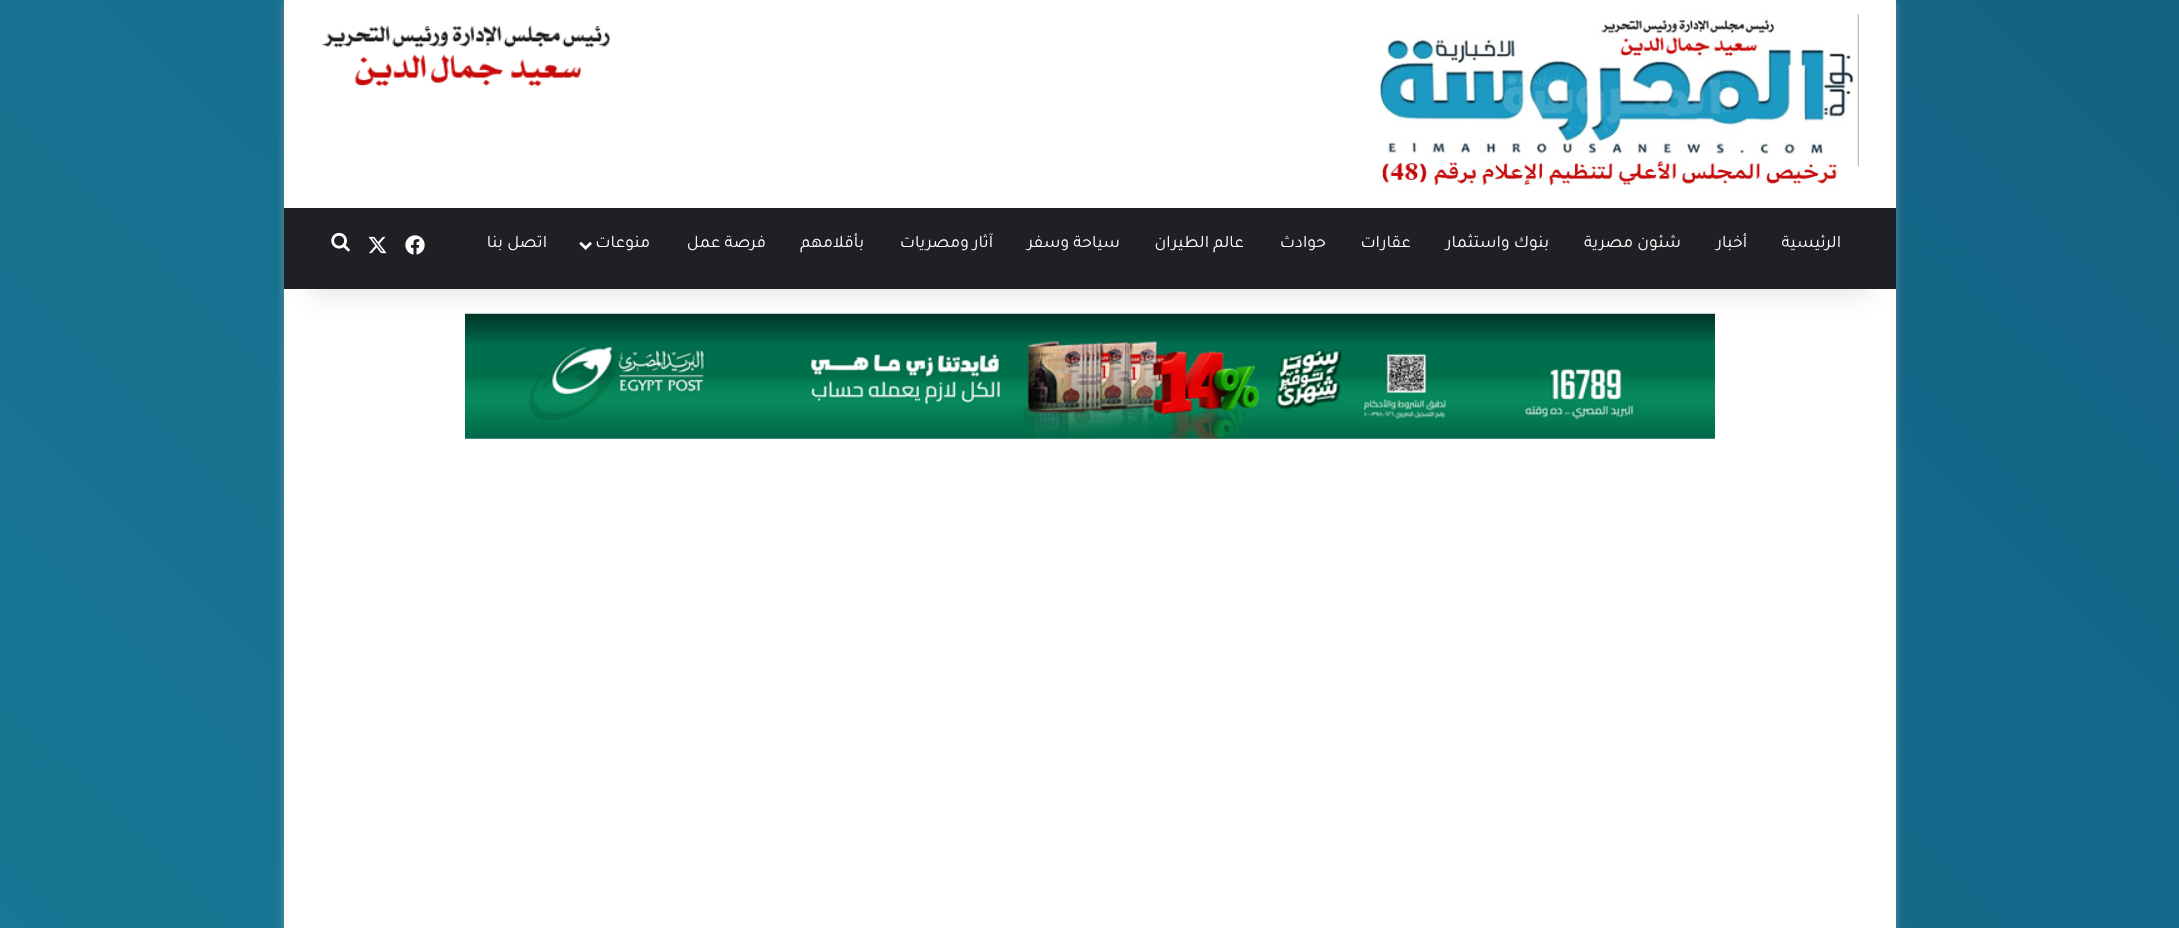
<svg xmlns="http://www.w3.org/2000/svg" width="2179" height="928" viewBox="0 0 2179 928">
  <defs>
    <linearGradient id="g1" gradientUnits="userSpaceOnUse" x1="194" y1="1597" x2="1986" y2="-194"><stop offset="0" stop-color="#197a96"/><stop offset="1" stop-color="#136284"/></linearGradient>
    <filter id="blur1" x="-50%" y="-200%" width="200%" height="500%"><feGaussianBlur stdDeviation="4.5"/></filter>
    <filter id="blur2" x="-50%" y="-200%" width="200%" height="500%"><feGaussianBlur stdDeviation="12.5"/></filter>
  </defs>
  <rect width="100%" height="100%" fill="#ffffff"/>
  <rect x="0" y="0" width="2179" height="928" fill="url(#g1)"/>
  <rect x="284" y="1" width="1612" height="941" fill="#ababab" fill-opacity="0.5" filter="url(#blur1)"/>
  <rect x="284" y="289" width="1612" height="639" fill="#ffffff"/>
  <image x="465" y="313" width="1250" height="126" href="img7.png"/>
  <rect x="309" y="56" width="1562" height="239" fill="#000000" fill-opacity="0.1" filter="url(#blur2)"/>
  <rect x="284" y="0" width="1612" height="208" fill="#ffffff"/>
  <image x="1379" y="14" width="480" height="172" href="img1.png"/>
  <image x="321" y="25" width="289" height="62" href="img2.png"/>
  <rect x="284" y="208" width="1612" height="81" fill="#1f2024"/>
  <text x="1841" y="247" font-family="Tajawal" font-size="17.5" direction="rtl" fill="#ffffff">الرئيسية</text>
  <text x="1747" y="247" font-family="Tajawal" font-size="17.5" direction="rtl" fill="#ffffff">أخبار</text>
  <text x="1681" y="247" font-family="Tajawal" font-size="17.5" direction="rtl" fill="#ffffff">شئون مصرية</text>
  <text x="1549" y="247" font-family="Tajawal" font-size="17.5" direction="rtl" fill="#ffffff">بنوك واستثمار</text>
  <text x="1411" y="247" font-family="Tajawal" font-size="17.5" direction="rtl" fill="#ffffff">عقارات</text>
  <text x="1326" y="247" font-family="Tajawal" font-size="17.5" direction="rtl" fill="#ffffff">حوادث</text>
  <text x="1244" y="247" font-family="Tajawal" font-size="17.5" direction="rtl" fill="#ffffff">عالم الطيران</text>
  <text x="1120" y="247" font-family="Tajawal" font-size="17.5" direction="rtl" fill="#ffffff">سياحة وسفر</text>
  <text x="993" y="247" font-family="Tajawal" font-size="17.5" direction="rtl" fill="#ffffff">آثار ومصريات</text>
  <text x="864" y="247" font-family="Tajawal" font-size="17.5" direction="rtl" fill="#ffffff">بأقلامهم</text>
  <text x="766" y="247" font-family="Tajawal" font-size="17.5" direction="rtl" fill="#ffffff">فرصة عمل</text>
  <text x="650" y="247" font-family="Tajawal" font-size="17.5" direction="rtl" fill="#ffffff">منوعات</text>
  <image x="579" y="242" width="13" height="8" href="img3.png"/>
  <text x="547" y="247" font-family="Tajawal" font-size="17.5" direction="rtl" fill="#ffffff">اتصل بنا</text>
  <image x="405" y="235" width="20" height="20" href="img4.png"/>
  <image x="368" y="236" width="19" height="18" href="img5.png"/>
  <image x="331" y="232" width="19" height="20" href="img6.png"/>
</svg>
